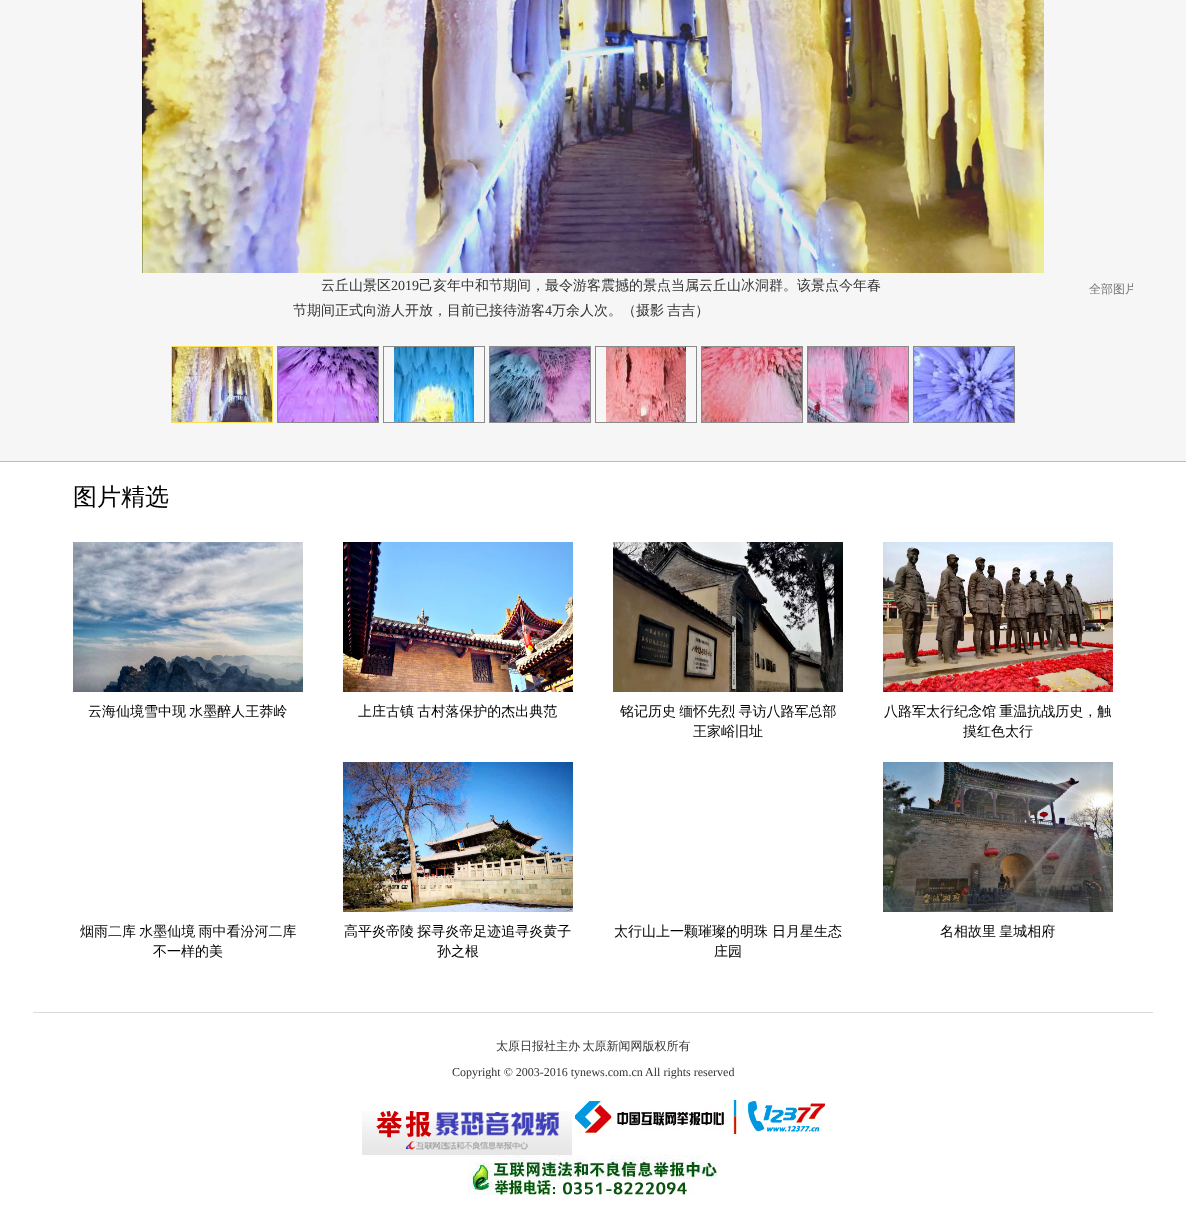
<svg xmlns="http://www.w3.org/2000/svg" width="1186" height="1221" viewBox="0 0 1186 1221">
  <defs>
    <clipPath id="clip1"><rect x="1065" y="281" width="68" height="17"/></clipPath>
  </defs>
  <rect width="100%" height="100%" fill="#ffffff"/>
  <rect x="0" y="0" width="1186" height="461" fill="#f6f6f6"/>
  <rect x="0" y="461" width="1186" height="1" fill="#bbbbbb"/>
  <image x="142" y="0" width="902" height="273" href="img1.png"/>
  <text x="321" y="290" font-family="WenQuanYi Zen Hei" font-size="14" font-weight="500" fill="#333333">云丘山景区</text>
  <text x="391" y="290" font-family="Liberation Serif" font-size="14" fill="#333333">2019</text>
  <text x="419" y="290" font-family="WenQuanYi Zen Hei" font-size="14" font-weight="500" fill="#333333">己亥年中和节期间，最令游客震撼的景点当属云丘山冰洞群。该景点今年春</text>
  <text x="293" y="315" font-family="WenQuanYi Zen Hei" font-size="14" font-weight="500" fill="#333333">节期间正式向游人开放，目前已接待游客</text>
  <text x="545" y="315" font-family="Liberation Serif" font-size="14" fill="#333333">4</text>
  <text x="552" y="315" word-spacing="-1" font-family="WenQuanYi Zen Hei" font-size="14" font-weight="500" fill="#333333">万余人次。（摄影 吉吉）</text>
  <g clip-path="url(#clip1)">
    <text x="1089" y="293" font-family="WenQuanYi Zen Hei" font-size="12" font-weight="500" fill="#767676">全部图片</text>
  </g>
  <rect x="171.5" y="346.5" width="101" height="76" fill="none" stroke="#f9df53"/>
  <image x="172" y="347" width="100" height="75" href="img2.png"/>
  <rect x="277.5" y="346.5" width="101" height="76" fill="none" stroke="#8b8b8c"/>
  <image x="278" y="347" width="100" height="75" href="img3.png"/>
  <rect x="383.5" y="346.5" width="101" height="76" fill="none" stroke="#8b8b8c"/>
  <image x="394" y="347" width="80" height="75" href="img4.png"/>
  <rect x="489.5" y="346.5" width="101" height="76" fill="none" stroke="#8b8b8c"/>
  <image x="490" y="347" width="100" height="75" href="img5.png"/>
  <rect x="595.5" y="346.5" width="101" height="76" fill="none" stroke="#8b8b8c"/>
  <image x="606" y="347" width="80" height="75" href="img6.png"/>
  <rect x="701.5" y="346.5" width="101" height="76" fill="none" stroke="#8b8b8c"/>
  <image x="702" y="347" width="100" height="75" href="img7.png"/>
  <rect x="807.5" y="346.5" width="101" height="76" fill="none" stroke="#8b8b8c"/>
  <image x="808" y="347" width="100" height="75" href="img8.png"/>
  <rect x="913.5" y="346.5" width="101" height="76" fill="none" stroke="#8b8b8c"/>
  <image x="914" y="347" width="100" height="75" href="img9.png"/>
  <text x="73" y="505" font-family="WenQuanYi Zen Hei" font-size="24" font-weight="500" fill="#000000">图片精选</text>
  <image x="73" y="542" width="230" height="150" href="img10.png"/>
  <text x="88" y="716" word-spacing="-1" font-family="WenQuanYi Zen Hei" font-size="14" font-weight="500" fill="#000000">云海仙境雪中现 水墨醉人王莽岭</text>
  <image x="343" y="542" width="230" height="150" href="img11.png"/>
  <text x="358" y="716" word-spacing="-1" font-family="WenQuanYi Zen Hei" font-size="14" font-weight="500" fill="#000000">上庄古镇 古村落保护的杰出典范</text>
  <image x="613" y="542" width="230" height="150" href="img12.png"/>
  <text x="620" y="716" word-spacing="-1" font-family="WenQuanYi Zen Hei" font-size="14" font-weight="500" fill="#000000">铭记历史 缅怀先烈 寻访八路军总部</text>
  <text x="693" y="736" font-family="WenQuanYi Zen Hei" font-size="14" font-weight="500" fill="#000000">王家峪旧址</text>
  <image x="883" y="542" width="230" height="150" href="img13.png"/>
  <text x="884" y="716" word-spacing="-1" font-family="WenQuanYi Zen Hei" font-size="14" font-weight="500" fill="#000000">八路军太行纪念馆 重温抗战历史，触</text>
  <text x="963" y="736" font-family="WenQuanYi Zen Hei" font-size="14" font-weight="500" fill="#000000">摸红色太行</text>
  <text x="80" y="936" word-spacing="-1" font-family="WenQuanYi Zen Hei" font-size="14" font-weight="500" fill="#000000">烟雨二库 水墨仙境 雨中看汾河二库</text>
  <text x="153" y="956" font-family="WenQuanYi Zen Hei" font-size="14" font-weight="500" fill="#000000">不一样的美</text>
  <image x="343" y="762" width="230" height="150" href="img14.png"/>
  <text x="344" y="936" word-spacing="-1" font-family="WenQuanYi Zen Hei" font-size="14" font-weight="500" fill="#000000">高平炎帝陵 探寻炎帝足迹追寻炎黄子</text>
  <text x="437" y="956" font-family="WenQuanYi Zen Hei" font-size="14" font-weight="500" fill="#000000">孙之根</text>
  <text x="614" y="936" font-family="WenQuanYi Zen Hei" font-size="14" font-weight="500" fill="#000000">太行山上一颗璀璨的明珠</text>
  <text x="772" y="936" font-family="WenQuanYi Zen Hei" font-size="14" font-weight="500" fill="#000000">日月星生态</text>
  <text x="714" y="956" font-family="WenQuanYi Zen Hei" font-size="14" font-weight="500" fill="#000000">庄园</text>
  <image x="883" y="762" width="230" height="150" href="img15.png"/>
  <text x="940" y="936" word-spacing="-1" font-family="WenQuanYi Zen Hei" font-size="14" font-weight="500" fill="#000000">名相故里 皇城相府</text>
  <rect x="33" y="1012" width="1120" height="1" fill="#dbdada"/>
  <text x="496" y="1050" word-spacing="-1" font-family="WenQuanYi Zen Hei" font-size="12" font-weight="500" fill="#333333">太原日报社主办 太原新闻网版权所有</text>
  <text x="452" y="1076" font-family="Liberation Serif" font-size="12" fill="#333333">Copyright © 2003-2016 tynews.com.cn All rights reserved</text>
  <image x="362" y="1111" width="210" height="44" href="img16.png"/>
  <image x="575" y="1100" width="250" height="34" href="img17.png"/>
  <image x="468" y="1155" width="250" height="40" href="img18.png"/>
</svg>
